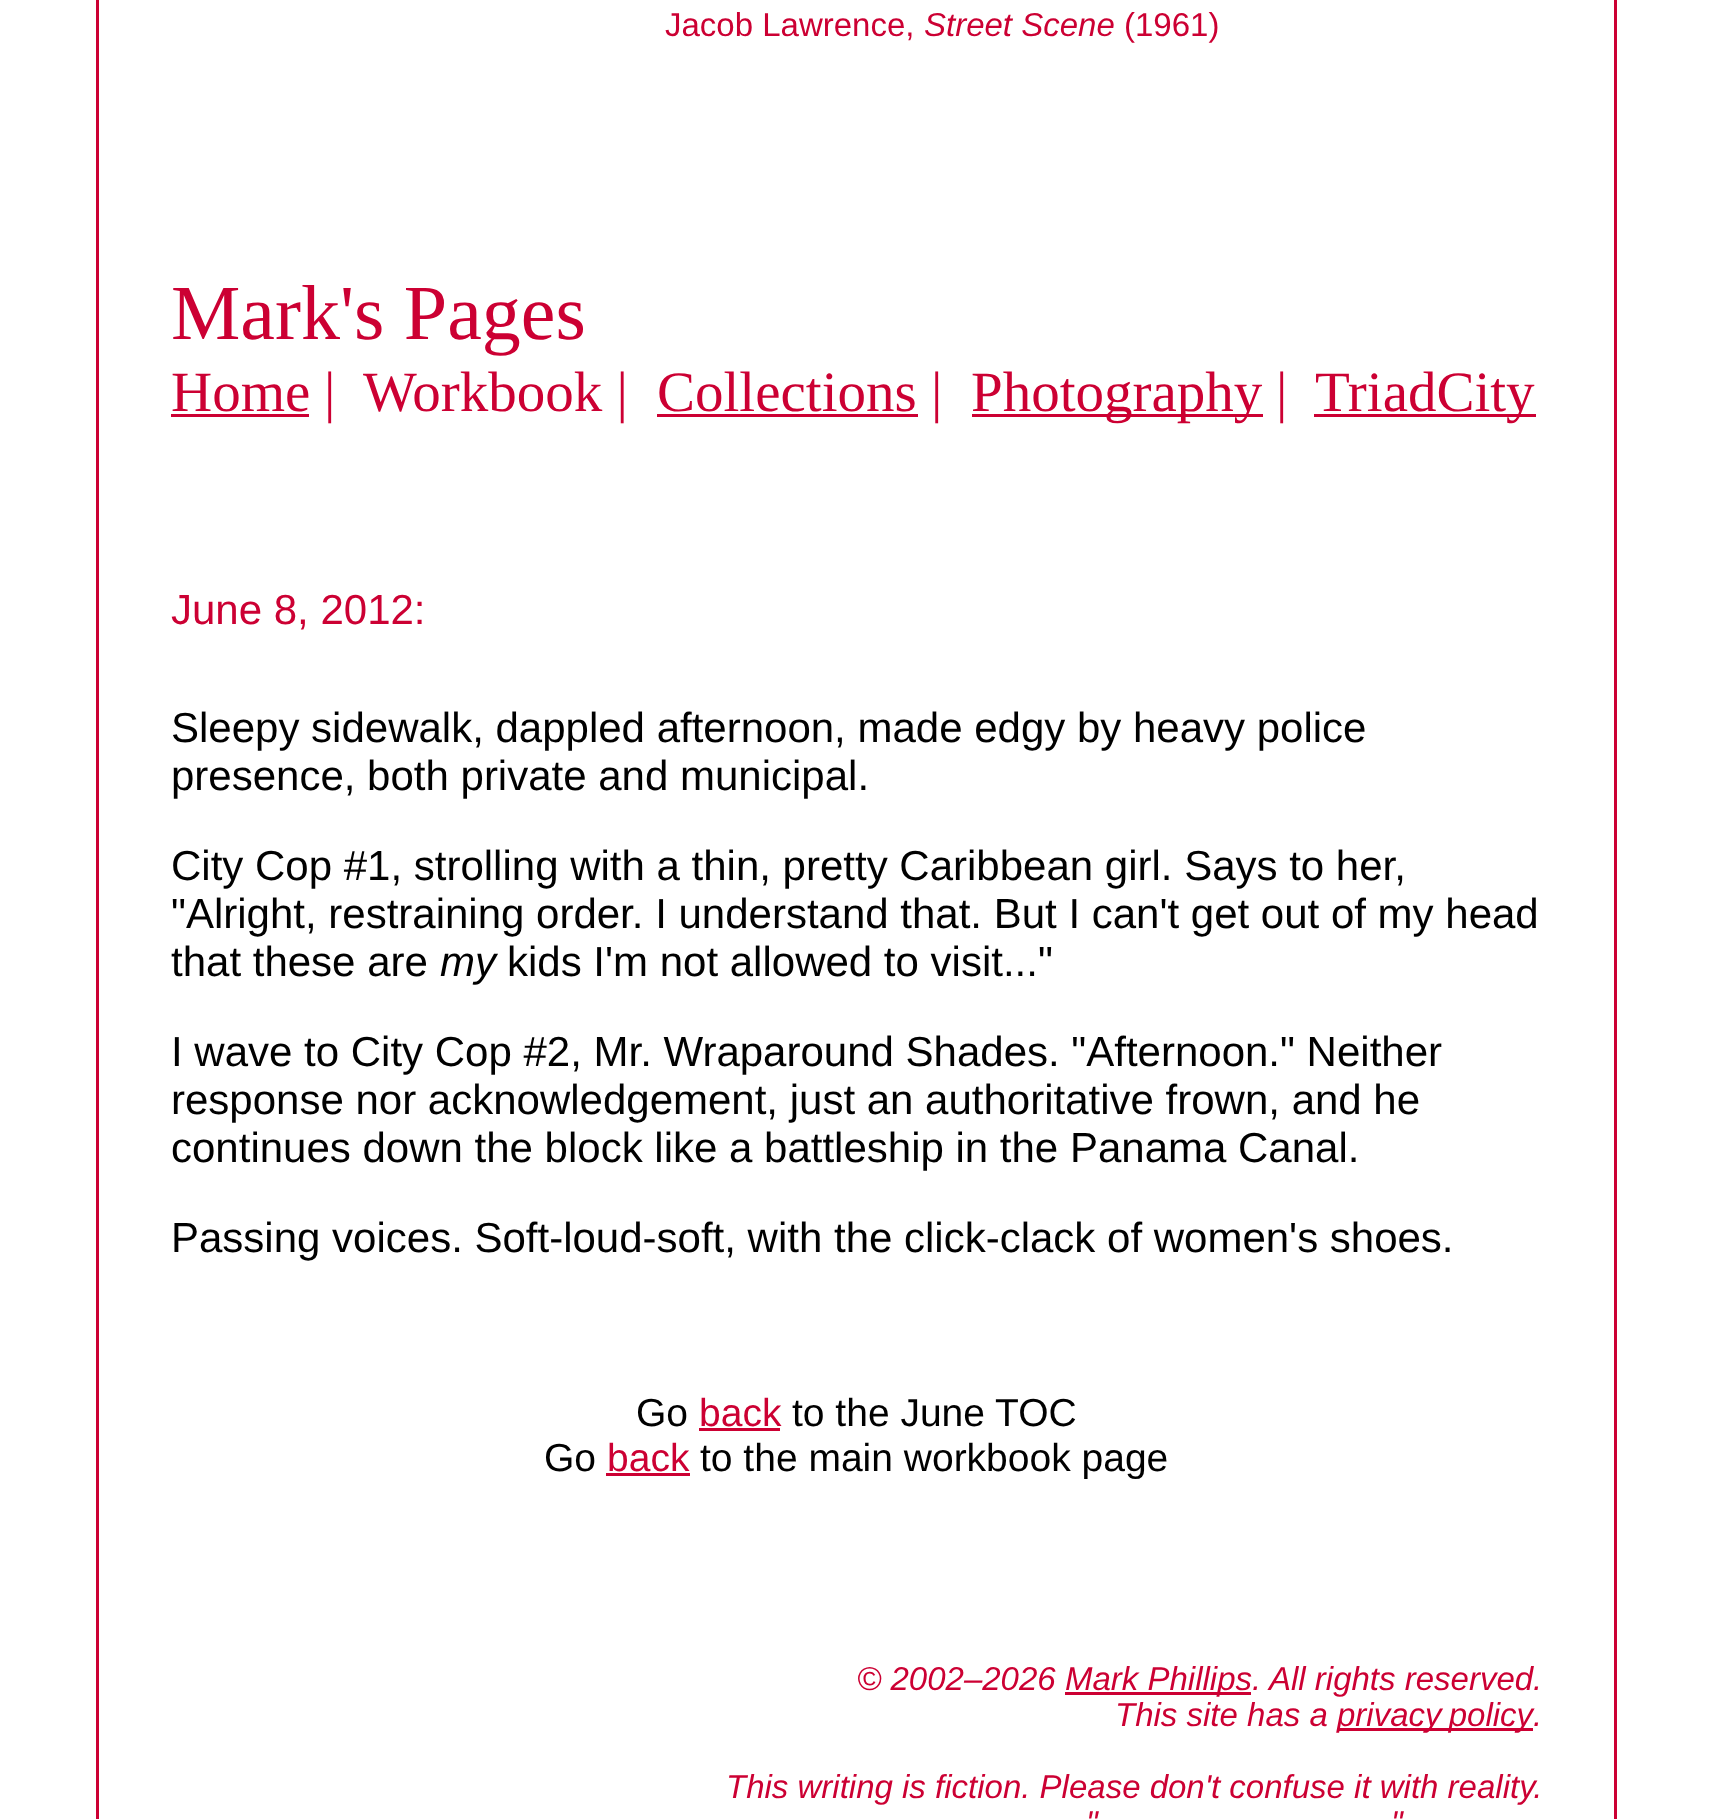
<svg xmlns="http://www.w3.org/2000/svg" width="1711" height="1819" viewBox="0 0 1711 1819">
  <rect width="100%" height="100%" fill="#ffffff"/>
  <rect x="97.5" y="-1.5" width="1518" height="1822" fill="none" stroke="#cc0033" stroke-width="3"/>
  <text x="665" y="36" font-family="Liberation Sans" font-size="33" fill="#cc0033">Jacob Lawrence,</text>
  <text x="924" y="36" font-family="Liberation Sans" font-size="33" font-style="italic" fill="#cc0033">Street Scene</text>
  <text x="1124" y="36" font-family="Liberation Sans" font-size="33" fill="#cc0033">(1961)</text>
  <text x="171" y="339" font-family="Liberation Serif" font-size="78" fill="#cc0033">Mark's Pages</text>
  <text x="171" y="411" font-family="Liberation Serif" font-size="57" fill="#cc0033">Home</text>
  <rect x="171" y="414" width="138" height="3" fill="#cc0033"/>
  <text x="324" y="411" font-family="Liberation Serif" font-size="57" fill="#cc0033">|</text>
  <text x="363" y="411" font-family="Liberation Serif" font-size="57" fill="#cc0033">Workbook |</text>
  <rect x="657" y="414" width="261" height="3" fill="#cc0033"/>
  <text x="657" y="411" font-family="Liberation Serif" font-size="57" fill="#cc0033">Collections |</text>
  <rect x="972" y="414" width="291" height="3" fill="#cc0033"/>
  <text x="971" y="411" font-family="Liberation Serif" font-size="57" fill="#cc0033">Photography</text>
  <text x="1276" y="411" font-family="Liberation Serif" font-size="57" fill="#cc0033">|</text>
  <rect x="1314" y="414" width="222" height="3" fill="#cc0033"/>
  <text x="1315" y="411" font-family="Liberation Serif" font-size="57" fill="#cc0033">TriadCity</text>
  <text x="171" y="624" font-family="Liberation Sans" font-size="42" fill="#cc0033">June 8, 2012:</text>
  <text x="171" y="742" font-family="Liberation Sans" font-size="42" fill="#000000">Sleepy sidewalk, dappled afternoon, made edgy by heavy police</text>
  <text x="171" y="790" font-family="Liberation Sans" font-size="42" fill="#000000">presence, both private and municipal.</text>
  <text x="171" y="880" font-family="Liberation Sans" font-size="42" fill="#000000">City Cop #1, strolling with a thin, pretty Caribbean girl. Says to her,</text>
  <text x="171" y="928" font-family="Liberation Sans" font-size="42" fill="#000000">"Alright, restraining order. I understand that. But I can't get out of my head</text>
  <text x="171" y="976" font-family="Liberation Sans" font-size="42" fill="#000000">that these are</text>
  <text x="440" y="976" font-family="Liberation Sans" font-size="42" font-style="italic" fill="#000000">my</text>
  <text x="507" y="976" font-family="Liberation Sans" font-size="42" fill="#000000">kids I'm not allowed to visit..."</text>
  <text x="171" y="1066" font-family="Liberation Sans" font-size="42" fill="#000000">I wave to City Cop #2, Mr. Wraparound Shades. "Afternoon." Neither</text>
  <text x="171" y="1114" font-family="Liberation Sans" font-size="42" fill="#000000">response nor acknowledgement, just an authoritative frown, and he</text>
  <text x="171" y="1162" font-family="Liberation Sans" font-size="42" fill="#000000">continues down the block like a battleship in the Panama Canal.</text>
  <text x="171" y="1252" font-family="Liberation Sans" font-size="42" fill="#000000">Passing voices. Soft-loud-soft, with the click-clack of women's shoes.</text>
  <text x="636" y="1426" font-family="Liberation Sans" font-size="39" fill="#000000">Go</text>
  <text x="699" y="1426" font-family="Liberation Sans" font-size="39" fill="#cc0033">back</text>
  <rect x="699" y="1428" width="81" height="3" fill="#cc0033"/>
  <text x="792" y="1426" font-family="Liberation Sans" font-size="39" fill="#000000">to the June TOC</text>
  <text x="544" y="1471" font-family="Liberation Sans" font-size="39" fill="#000000">Go</text>
  <text x="607" y="1471" font-family="Liberation Sans" font-size="39" fill="#cc0033">back</text>
  <rect x="606" y="1473" width="84" height="3" fill="#cc0033"/>
  <text x="700" y="1471" font-family="Liberation Sans" font-size="39" fill="#000000">to the main workbook page</text>
  <text x="857" y="1690" font-family="Liberation Sans" font-size="33" font-style="italic" fill="#cc0033">© 2002–2026</text>
  <rect x="1065" y="1692" width="186" height="3" fill="#cc0033"/>
  <text x="1065" y="1690" font-family="Liberation Sans" font-size="33" font-style="italic" fill="#cc0033">Mark Phillips.</text>
  <text x="1269" y="1690" font-family="Liberation Sans" font-size="33" font-style="italic" fill="#cc0033">All rights reserved.</text>
  <text x="1115" y="1726" font-family="Liberation Sans" font-size="33" font-style="italic" fill="#cc0033">This site has a</text>
  <rect x="1338" y="1728" width="195" height="3" fill="#cc0033"/>
  <text x="1337" y="1726" word-spacing="-2" font-family="Liberation Sans" font-size="33" font-style="italic" fill="#cc0033">privacy policy</text>
  <text x="1533" y="1726" font-family="Liberation Sans" font-size="33" font-style="italic" fill="#cc0033">.</text>
  <text x="726" y="1798" font-family="Liberation Sans" font-size="33" font-style="italic" fill="#cc0033">This writing is fiction. Please don't confuse it with reality.</text>
  <text x="1086" y="1834" font-family="Liberation Sans" font-size="33" font-style="italic" fill="#cc0033">"</text>
  <text x="1391" y="1834" font-family="Liberation Sans" font-size="33" font-style="italic" fill="#cc0033">"</text>
</svg>
